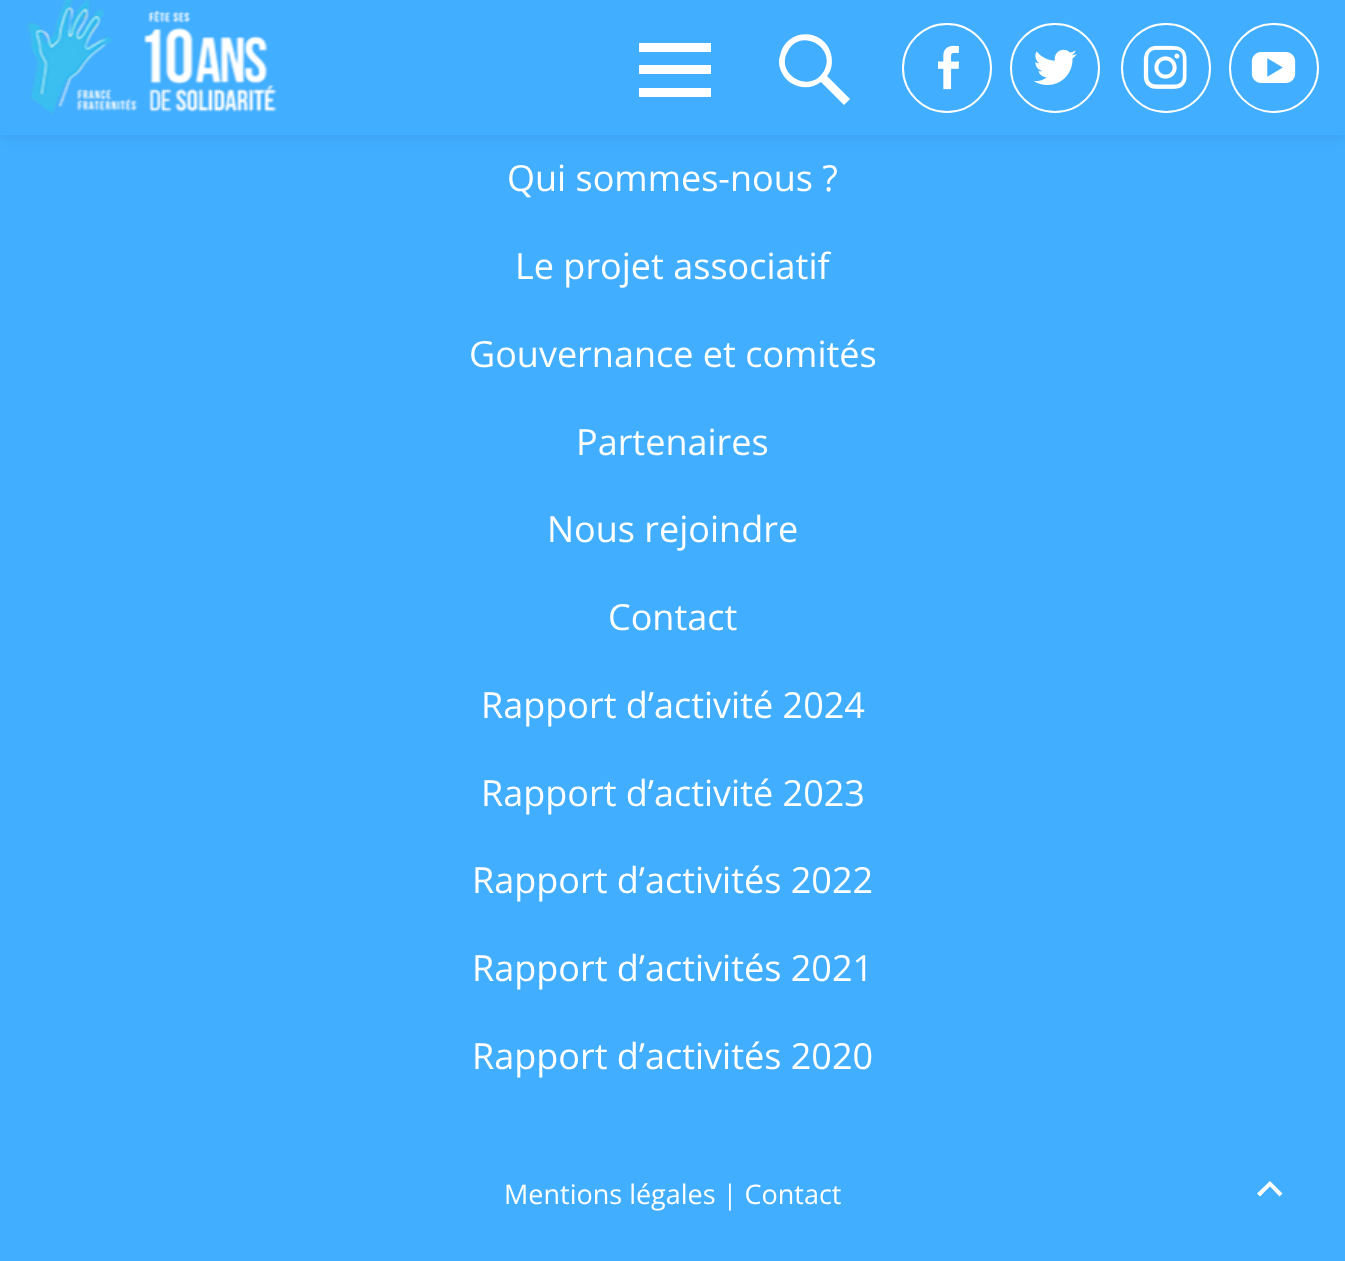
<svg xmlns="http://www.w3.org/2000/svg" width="1345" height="1261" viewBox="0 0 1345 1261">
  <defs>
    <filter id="blur1" x="-50%" y="-200%" width="200%" height="500%"><feGaussianBlur stdDeviation="8"/></filter>
  </defs>
  <rect width="100%" height="100%" fill="#41aeff"/>
  <rect x="0" y="0" width="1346" height="135" fill="#000000" fill-opacity="0.1" filter="url(#blur1)"/>
  <rect x="0" y="0" width="1345" height="135" fill="#41aeff"/>
  <image x="26" y="0" width="251" height="115" href="img1.png"/>
  <path d="M639 97V88H711V97ZM639 43H711V52H639ZM639 74V65H711V74Z" fill="#ffffff"/>
  <path d="M850 99L844 105L821 82C808 92 789 87 782 73C779 67 778 61 780 56C785 28 824 27 831 54C833 62 832 70 827 76ZM788 51C774 74 810 95 824 71C837 48 801 27 788 51Z" fill="#ffffff"/>
  <circle cx="947" cy="68" r="44" fill="none" stroke="#ffffff" stroke-width="2"/>
  <image x="937" y="45" width="22" height="45" href="img2.png"/>
  <circle cx="1055" cy="68" r="44" fill="none" stroke="#ffffff" stroke-width="2"/>
  <image x="1033" y="49" width="44" height="36" href="img3.png"/>
  <circle cx="1166" cy="68" r="44" fill="none" stroke="#ffffff" stroke-width="2"/>
  <image x="1143" y="45" width="44" height="44" href="img4.png"/>
  <circle cx="1274" cy="68" r="44" fill="none" stroke="#ffffff" stroke-width="2"/>
  <image x="1251" y="52" width="45" height="31" href="img5.png"/>
  <text x="507" y="191" font-family="Open Sans" font-size="36" fill="#ffffff">Qui sommes-nous ?</text>
  <text x="515" y="279" font-family="Open Sans" font-size="36" fill="#ffffff">Le projet associatif</text>
  <text x="469" y="367" font-family="Open Sans" font-size="36" fill="#ffffff">Gouvernance et comités</text>
  <text x="576" y="455" font-family="Open Sans" font-size="36" fill="#ffffff">Partenaires</text>
  <text x="547" y="542" font-family="Open Sans" font-size="36" fill="#ffffff">Nous rejoindre</text>
  <text x="608" y="630" font-family="Open Sans" font-size="36" fill="#ffffff">Contact</text>
  <text x="481" y="718" font-family="Open Sans" font-size="36" fill="#ffffff">Rapport d’activité 2024</text>
  <text x="481" y="806" font-family="Open Sans" font-size="36" fill="#ffffff">Rapport d’activité 2023</text>
  <text x="472" y="893" font-family="Open Sans" font-size="36" fill="#ffffff">Rapport d’activités 2022</text>
  <text x="472" y="981" font-family="Open Sans" font-size="36" fill="#ffffff">Rapport d’activités 2021</text>
  <text x="472" y="1069" font-family="Open Sans" font-size="36" fill="#ffffff">Rapport d’activités 2020</text>
  <text x="504" y="1204" font-family="Open Sans" font-size="27" fill="#ffffff">Mentions légales | Contact</text>
  <path d="M1279.5 1196.5L1270 1186.5L1260 1196.5L1257 1193.5L1270 1181L1282.5 1193.5Z" fill="#ffffff"/>
</svg>
